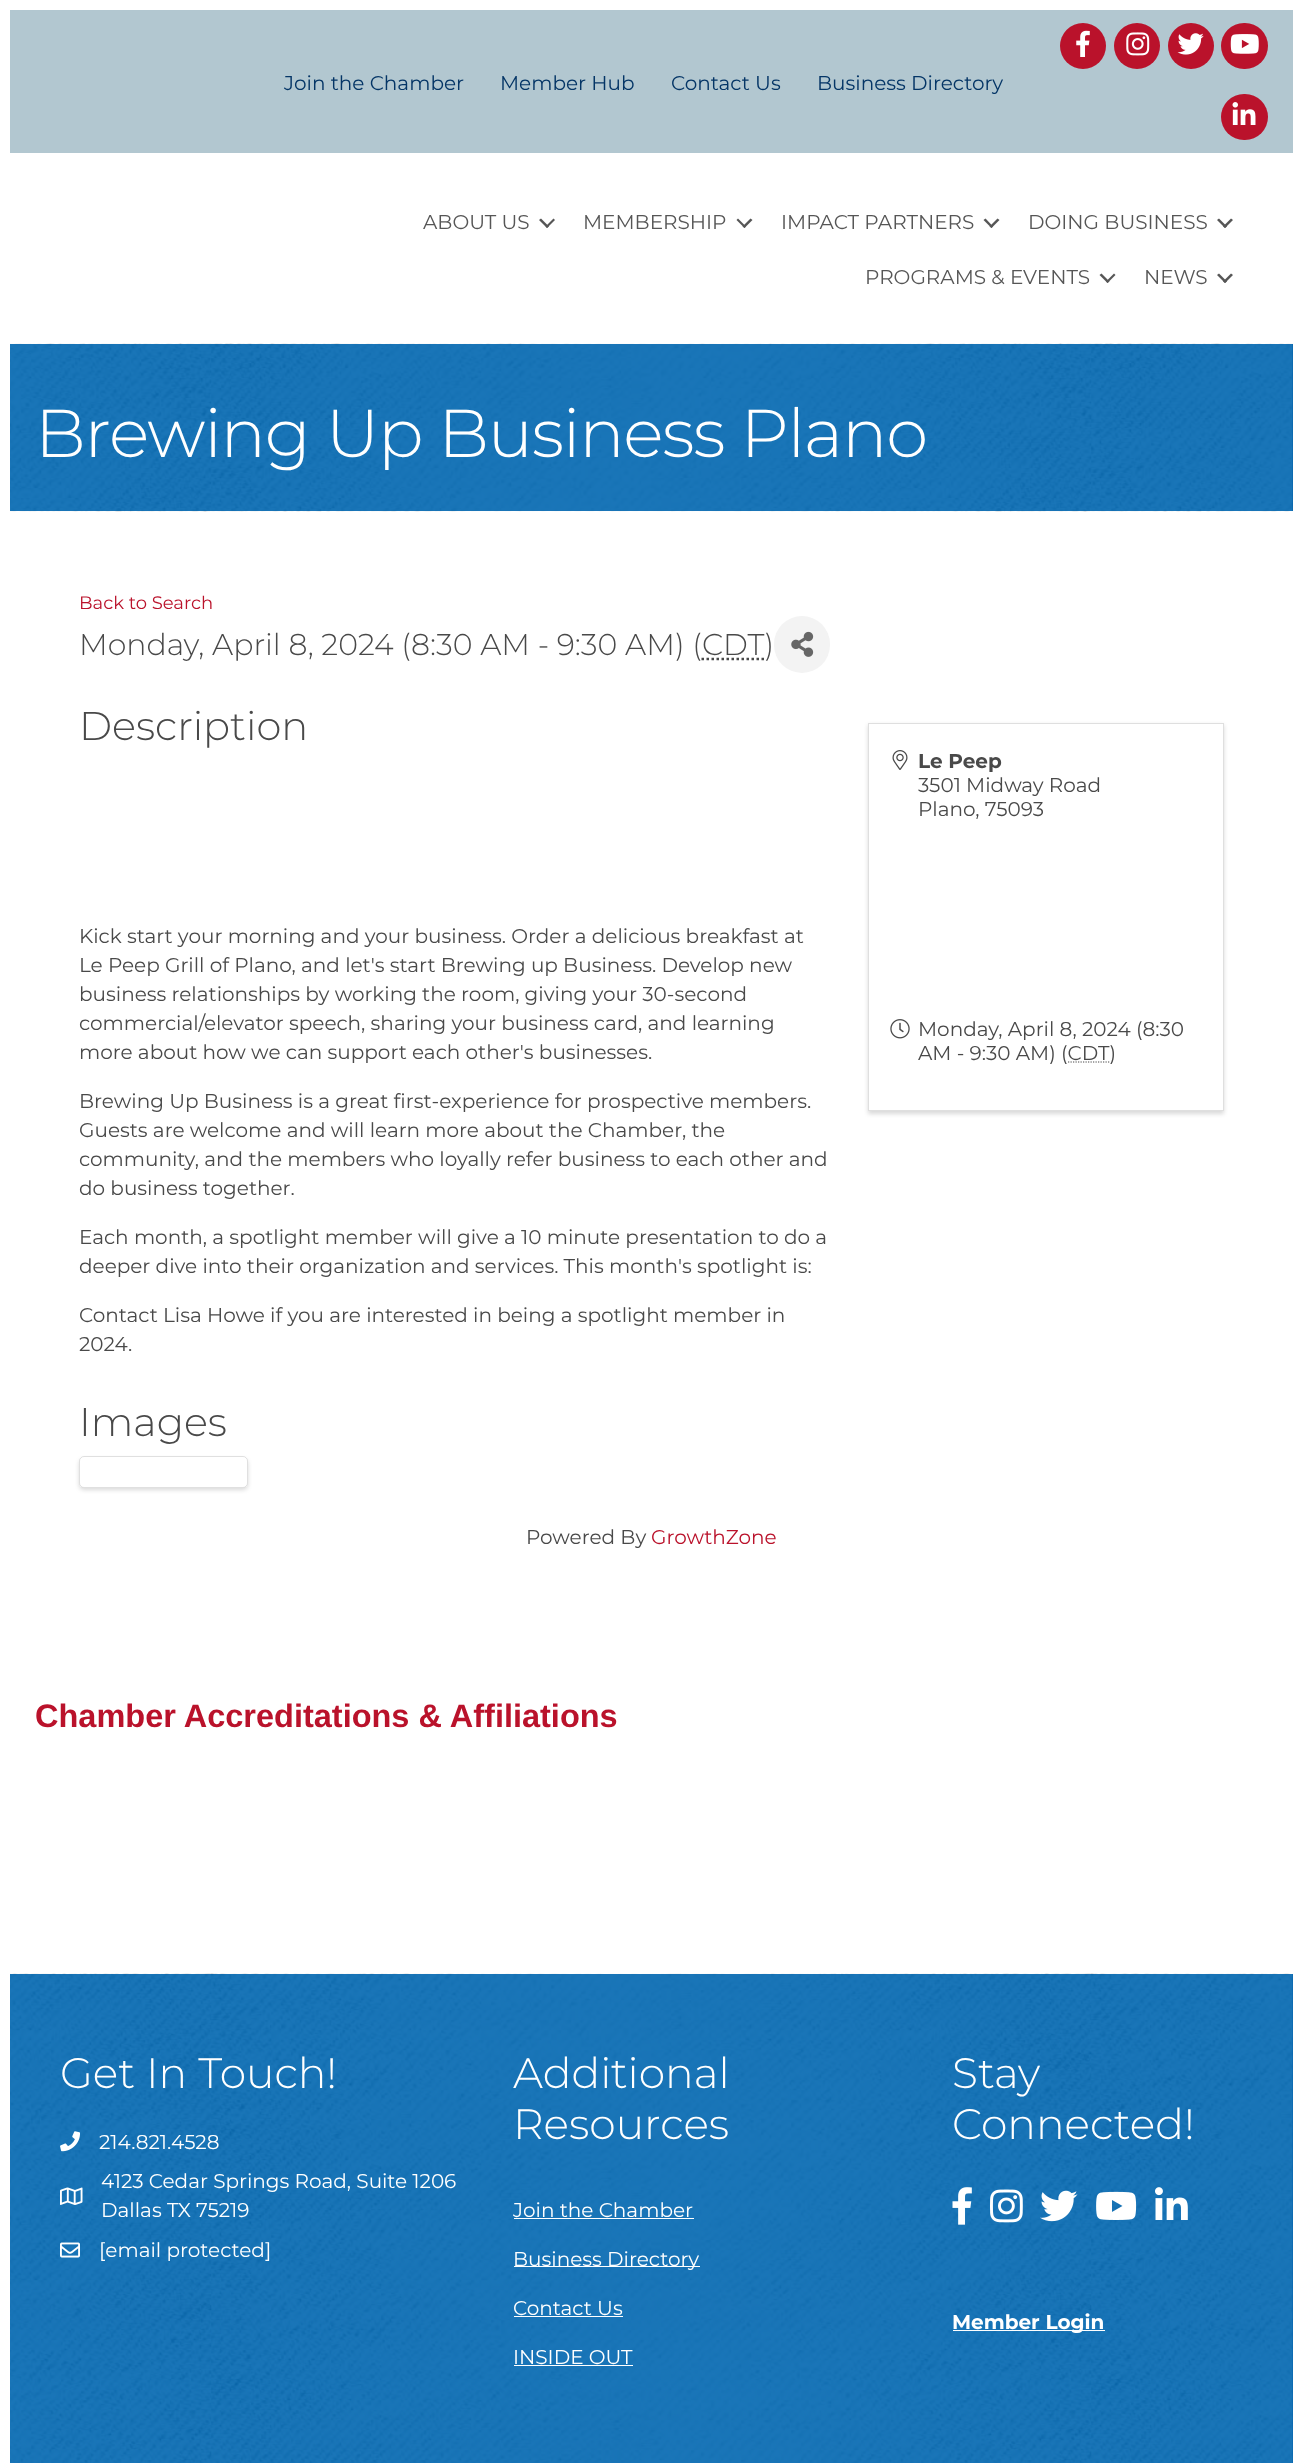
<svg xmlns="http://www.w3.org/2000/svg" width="1302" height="2463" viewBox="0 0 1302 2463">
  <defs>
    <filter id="blur1" x="-50%" y="-200%" width="200%" height="500%"><feGaussianBlur stdDeviation="2"/></filter>
  </defs>
  <rect width="100%" height="100%" fill="#ffffff"/>
  <rect x="10" y="10" width="1283" height="143" fill="#b2c7d0"/>
  <text x="284" y="90" font-family="Montserrat" font-size="20" fill="#043566">Join the Chamber</text>
  <text x="500" y="90" font-family="Montserrat" font-size="20" fill="#043566">Member Hub</text>
  <text x="671" y="90" font-family="Montserrat" font-size="20" fill="#043566">Contact Us</text>
  <text x="817" y="90" font-family="Montserrat" font-size="20" fill="#043566">Business Directory</text>
  <circle cx="1083" cy="46" r="23" fill="#ba122b"/>
  <image x="1076" y="30" width="14" height="27" href="img1.png"/>
  <circle cx="1137" cy="46" r="23" fill="#ba122b"/>
  <image x="1126" y="32" width="24" height="24" href="img2.png"/>
  <circle cx="1191" cy="46" r="23" fill="#ba122b"/>
  <image x="1177" y="33" width="27" height="22" href="img3.png"/>
  <rect x="1221" y="23" width="47" height="46" rx="23" fill="#ba122b"/>
  <image x="1230" y="34" width="29" height="20" href="img4.png"/>
  <rect x="1221" y="94" width="47" height="46" rx="23" fill="#ba122b"/>
  <image x="1232" y="102" width="24" height="23" href="img5.png"/>
  <text x="423" y="229" font-family="Montserrat" font-size="20" fill="#565656">ABOUT US</text>
  <path d="M553.5 218.5L555 220L547 228L545.5 226.5Z" fill="#565656"/>
  <path d="M541 218.5L549 226.5L547 228L539 220Z" fill="#565656"/>
  <text x="583" y="229" font-family="Montserrat" font-size="20" fill="#565656">MEMBERSHIP</text>
  <path d="M750.5 218.5L752.5 220L744.5 228L742.5 226.5Z" fill="#565656"/>
  <path d="M738 218.5L746 226.5L744.5 228L736.5 220Z" fill="#565656"/>
  <text x="781" y="229" font-family="Montserrat" font-size="20" fill="#565656">IMPACT PARTNERS</text>
  <path d="M997.5 218.5L999.5 220L991.5 228L989.5 226.5Z" fill="#565656"/>
  <path d="M985.5 218.5L993 226.5L991.5 228L983.5 220Z" fill="#565656"/>
  <text x="1028" y="229" font-family="Montserrat" font-size="20" fill="#565656">DOING BUSINESS</text>
  <path d="M1231 218.5L1233 220L1225 228L1223 226.5Z" fill="#565656"/>
  <path d="M1219 218.5L1227 226.5L1225 228L1217 220Z" fill="#565656"/>
  <text x="865" y="284" font-family="Montserrat" font-size="20" fill="#565656">PROGRAMS &amp; EVENTS</text>
  <path d="M1114 273.5L1115.5 275L1107.5 283L1106 281.5Z" fill="#565656"/>
  <path d="M1101.5 273.5L1109.5 281.5L1107.5 283L1099.5 275Z" fill="#565656"/>
  <text x="1144" y="284" font-family="Montserrat" font-size="20" fill="#565656">NEWS</text>
  <path d="M1231 273.5L1233 275L1225 283L1223 281.5Z" fill="#565656"/>
  <path d="M1219 273.5L1227 281.5L1225 283L1217 275Z" fill="#565656"/>
  <rect x="1292" y="344" width="1" height="167" fill="#0061a9"/>
  <image x="10" y="343" width="1283" height="169" href="img6.png"/>
  <text x="35" y="457" font-family="Montserrat" font-size="67.5" font-weight="300" letter-spacing="-1.25" fill="#ffffff">Brewing Up Business Plano</text>
  <text x="79" y="609" font-family="Montserrat" font-size="18" fill="#ba122b">Back to Search</text>
  <text x="79" y="655" font-family="Montserrat" font-size="30" font-weight="300" fill="#494949">Monday, April 8, 2024 (8:30 AM - 9:30 AM) (CDT)</text>
  <path d="M701.5 659H764" fill="none" stroke="#494949" stroke-width="2.5" stroke-dasharray="2.5 2.5"/>
  <rect x="774" y="616" width="56" height="57" rx="28" fill="#f3f3f3"/>
  <image x="791" y="631" width="23" height="26" href="img7.png"/>
  <text x="79" y="740" font-family="Montserrat" font-size="40" font-weight="300" fill="#494949">Description</text>
  <text x="79" y="943" font-family="Montserrat" font-size="20" fill="#494949">Kick start your morning and your business. Order a delicious breakfast at</text>
  <text x="79" y="972" font-family="Montserrat" font-size="20" fill="#494949">Le Peep Grill of Plano, and let's start Brewing up Business. Develop new</text>
  <text x="79" y="1001" font-family="Montserrat" font-size="20" fill="#494949">business relationships by working the room, giving your 30-second</text>
  <text x="79" y="1030" font-family="Montserrat" font-size="20" fill="#494949">commercial/elevator speech, sharing your business card, and learning</text>
  <text x="79" y="1059" font-family="Montserrat" font-size="20" fill="#494949">more about how we can support each other's businesses.</text>
  <text x="79" y="1108" font-family="Montserrat" font-size="20" fill="#494949">Brewing Up Business is a great first-experience for prospective members.</text>
  <text x="79" y="1137" font-family="Montserrat" font-size="20" fill="#494949">Guests are welcome and will learn more about the Chamber, the</text>
  <text x="79" y="1166" font-family="Montserrat" font-size="20" fill="#494949">community, and the members who loyally refer business to each other and</text>
  <text x="79" y="1195" font-family="Montserrat" font-size="20" fill="#494949">do business together.</text>
  <text x="79" y="1244" font-family="Montserrat" font-size="20" fill="#494949">Each month, a spotlight member will give a 10 minute presentation to do a</text>
  <text x="79" y="1273" font-family="Montserrat" font-size="20" fill="#494949">deeper dive into their organization and services. This month's spotlight is:</text>
  <text x="79" y="1322" font-family="Montserrat" font-size="20" fill="#494949">Contact Lisa Howe if you are interested in being a spotlight member in</text>
  <text x="79" y="1351" font-family="Montserrat" font-size="20" fill="#494949">2024.</text>
  <text x="79" y="1436" font-family="Montserrat" font-size="40" font-weight="300" fill="#494949">Images</text>
  <rect x="79" y="1459" width="169" height="31" rx="5" fill="#000000" fill-opacity="0.15" filter="url(#blur1)"/>
  <rect x="79" y="1456" width="169" height="32" rx="5" fill="#ffffff"/>
  <rect x="79.5" y="1456.5" width="168" height="31" rx="4.5" fill="none" stroke="#000000" stroke-opacity="0.12"/>
  <rect x="868" y="725" width="356" height="389" fill="#000000" fill-opacity="0.15" filter="url(#blur1)"/>
  <rect x="868.5" y="723.5" width="355" height="387" fill="#ffffff" stroke="#dfdfdf"/>
  <image x="892" y="750" width="16" height="20" href="img8.png"/>
  <text x="918" y="768" font-family="Montserrat" font-size="20" font-weight="bold" fill="#494949">Le Peep</text>
  <text x="918" y="792" font-family="Montserrat" font-size="20" fill="#494949">3501 Midway Road</text>
  <text x="918" y="816" font-family="Montserrat" font-size="20" fill="#494949">Plano, 75093</text>
  <image x="890" y="1019" width="20" height="20" href="img9.png"/>
  <text x="918" y="1036" font-family="Montserrat" font-size="20" fill="#494949">Monday, April 8, 2024 (8:30</text>
  <text x="918" y="1060" font-family="Montserrat" font-size="20" fill="#494949">AM - 9:30 AM) (CDT)</text>
  <path d="M1068 1062H1110" fill="none" stroke="#494949" stroke-width="1.2" stroke-dasharray="1.25 1.25"/>
  <text x="526" y="1544" font-family="Montserrat" font-size="20" fill="#494949">Powered By</text>
  <text x="651" y="1544" font-family="Montserrat" font-size="20" fill="#ba122b">GrowthZone</text>
  <text x="35" y="1727" font-family="Liberation Sans" font-size="32.5" font-weight="bold" fill="#ba122b">Chamber Accreditations &amp; Affiliations</text>
  <rect x="1292" y="1974" width="1" height="489" fill="#0263ad"/>
  <image x="10" y="1973" width="1283" height="490" href="img10.png"/>
  <text x="60" y="2088" font-family="Montserrat" font-size="42.5" font-weight="300" fill="#ffffff">Get In Touch!</text>
  <image x="60" y="2131" width="20" height="21" href="img11.png"/>
  <text x="99" y="2149" font-family="Montserrat" font-size="20" fill="#ffffff">214.821.4528</text>
  <image x="60" y="2187" width="23" height="18" href="img12.png"/>
  <text x="101" y="2188" font-family="Montserrat" font-size="20" fill="#ffffff">4123 Cedar Springs Road, Suite 1206</text>
  <text x="101" y="2217" font-family="Montserrat" font-size="20" fill="#ffffff">Dallas TX 75219</text>
  <image x="60" y="2242" width="20" height="16" href="img13.png"/>
  <text x="99" y="2257" font-family="Montserrat" font-size="20" fill="#ffffff">[email protected]</text>
  <text x="513" y="2088" font-family="Montserrat" font-size="42.5" font-weight="300" fill="#ffffff">Additional</text>
  <text x="513" y="2139" font-family="Montserrat" font-size="42.5" font-weight="300" fill="#ffffff">Resources</text>
  <text x="513" y="2217" font-family="Montserrat" font-size="20" fill="#ffffff">Join the Chamber</text>
  <rect x="514" y="2218" width="180" height="1" fill="#ffffff"/>
  <rect x="514" y="2266" width="186" height="1" fill="#ffffff"/>
  <text x="513" y="2266" font-family="Montserrat" font-size="20" fill="#ffffff">Business Directory</text>
  <text x="513" y="2315" font-family="Montserrat" font-size="20" fill="#ffffff">Contact Us</text>
  <rect x="514" y="2316" width="109" height="1" fill="#ffffff"/>
  <text x="513" y="2364" font-family="Montserrat" font-size="20" fill="#ffffff">INSIDE OUT</text>
  <rect x="514" y="2365" width="119" height="1" fill="#ffffff"/>
  <text x="952" y="2088" font-family="Montserrat" font-size="42.5" font-weight="300" fill="#ffffff">Stay</text>
  <text x="952" y="2139" font-family="Montserrat" font-size="42.5" font-weight="300" fill="#ffffff">Connected!</text>
  <image x="952" y="2187" width="20" height="38" href="img14.png"/>
  <image x="990" y="2189" width="33" height="34" href="img15.png"/>
  <image x="1040" y="2190" width="38" height="32" href="img16.png"/>
  <image x="1096" y="2191" width="41" height="29" href="img17.png"/>
  <image x="1155" y="2187" width="33" height="33" href="img18.png"/>
  <rect x="953" y="2330" width="152" height="1" fill="#ffffff"/>
  <text x="952" y="2329" font-family="Montserrat" font-size="20" font-weight="bold" fill="#ffffff">Member Login</text>
</svg>
